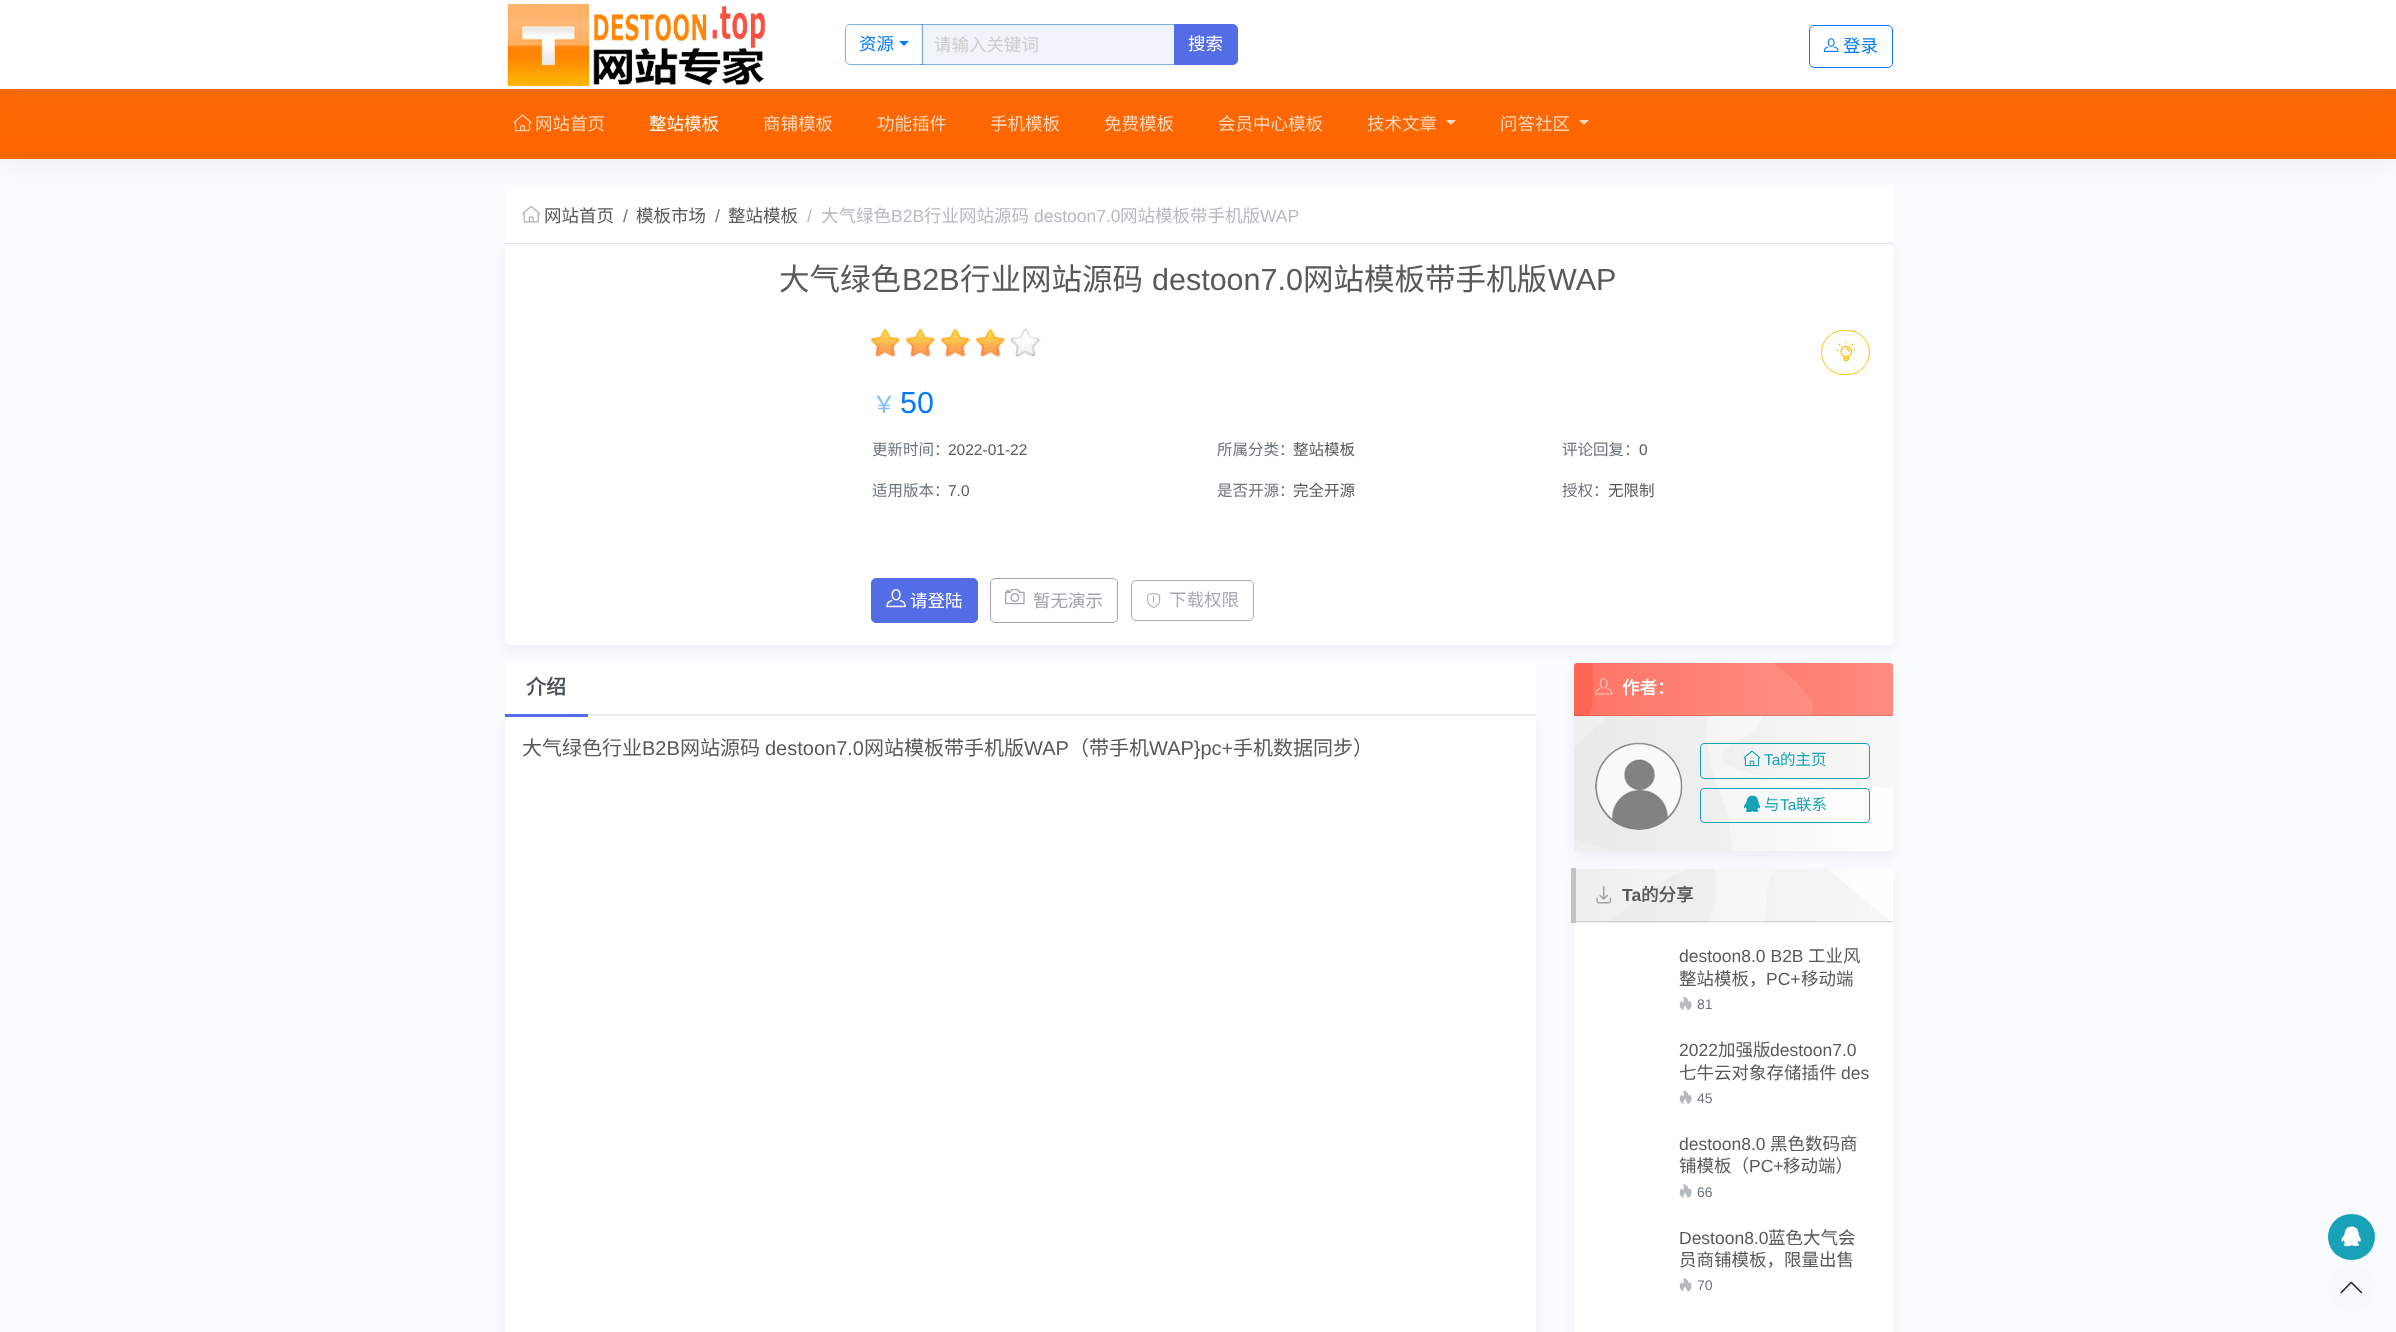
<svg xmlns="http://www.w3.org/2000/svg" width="2396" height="1332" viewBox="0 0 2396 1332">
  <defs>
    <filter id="blur1" x="-50%" y="-200%" width="200%" height="500%"><feGaussianBlur stdDeviation="11"/></filter>
    <filter id="blur2" x="-50%" y="-200%" width="200%" height="500%"><feGaussianBlur stdDeviation="22"/></filter>
    <filter id="blur3" x="-50%" y="-200%" width="200%" height="500%"><feGaussianBlur stdDeviation="6.5"/></filter>
  </defs>
  <rect width="100%" height="100%" fill="#fafbfe"/>
  <rect x="505" y="185" width="1388" height="58" fill="#ffffff"/>
  <rect x="1" y="95" width="2394" height="68" fill="#000000" fill-opacity="0.05" filter="url(#blur1)"/>
  <rect x="0" y="89" width="2396" height="70" fill="#ff6600"/>
  <image x="513" y="114" width="19" height="18" href="img3.png"/>
  <path d="M1446 120H1456L1451 125Z" fill="#ffd9bf"/>
  <path d="M1579 120H1589L1584 125Z" fill="#ffd9bf"/>
  <rect x="0" y="0" width="2396" height="89" fill="#9aa1ab" fill-opacity="0.15" filter="url(#blur2)"/>
  <rect x="0" y="0" width="2396" height="89" fill="#ffffff"/>
  <image x="507" y="4" width="259" height="83" href="img1.png"/>
  <rect x="921" y="25" width="253" height="39" fill="#f1f3fa"/>
  <rect x="921" y="24" width="253" height="1" fill="#80b1e6"/>
  <rect x="921" y="64" width="253" height="1" fill="#80b1e6"/>
  <path d="M850 24.5H922.5V64.5H850C847.5 64.5 845.5 62.5 845.5 60V29C845.5 26.5 847.5 24.5 850 24.5Z" fill="none" stroke="#0062cc" stroke-opacity="0.5"/>
  <text x="859" y="50" font-family="Noto Sans CJK SC" font-size="17.5" fill="#007bff">资源</text>
  <path d="M899 41H909L904 46Z" fill="#007bff"/>
  <text x="934" y="51" font-family="Noto Sans CJK SC" font-size="17.5" fill="#cccccc">请输入关键词</text>
  <path d="M1174.5 24.5H1233C1235.5 24.5 1237.5 26.5 1237.5 29V60C1237.5 62.5 1235.5 64.5 1233 64.5H1174.5Z" fill="#536de6" stroke="#536de6"/>
  <text x="1188" y="50" font-family="Noto Sans CJK SC" font-size="17.5" fill="#ffffff">搜索</text>
  <rect x="1809.5" y="25.5" width="83" height="42" rx="4.5" fill="none" stroke="#007bff"/>
  <image x="1823" y="38" width="16" height="14" href="img2.png"/>
  <text x="1843" y="52" font-family="Noto Sans CJK SC" font-size="17.5" fill="#007bff">登录</text>
  <text x="535" y="130" font-family="Noto Sans CJK SC" font-size="17.5" fill="#ffd9bf">网站首页</text>
  <text x="649" y="130" font-family="Noto Sans CJK SC" font-size="17.5" fill="#ffffff">整站模板</text>
  <text x="763" y="130" font-family="Noto Sans CJK SC" font-size="17.5" fill="#ffd9bf">商铺模板</text>
  <text x="877" y="130" font-family="Noto Sans CJK SC" font-size="17.5" fill="#ffd9bf">功能插件</text>
  <text x="990" y="130" font-family="Noto Sans CJK SC" font-size="17.5" fill="#ffd9bf">手机模板</text>
  <text x="1104" y="130" font-family="Noto Sans CJK SC" font-size="17.5" fill="#ffd9bf">免费模板</text>
  <text x="1218" y="130" font-family="Noto Sans CJK SC" font-size="17.5" fill="#ffd9bf">会员中心模板</text>
  <text x="1367" y="130" font-family="Noto Sans CJK SC" font-size="17.5" fill="#ffd9bf">技术文章</text>
  <text x="1500" y="130" font-family="Noto Sans CJK SC" font-size="17.5" fill="#ffd9bf">问答社区</text>
  <rect x="505" y="243" width="1388" height="1" fill="#dee2e6"/>
  <image x="522" y="206" width="18" height="17" href="img4.png"/>
  <text x="544" y="222" font-family="Noto Sans CJK SC" font-size="17.5" fill="#595959">网站首页</text>
  <text x="623" y="222" font-family="Liberation Sans" font-size="17.5" fill="#6c757d">/</text>
  <text x="636" y="222" font-family="Noto Sans CJK SC" font-size="17.5" fill="#595959">模板市场</text>
  <text x="715" y="222" font-family="Liberation Sans" font-size="17.5" fill="#6c757d">/</text>
  <text x="728" y="222" font-family="Noto Sans CJK SC" font-size="17.5" fill="#595959">整站模板</text>
  <text x="807" y="222" font-family="Liberation Sans" font-size="17.5" fill="#b6babe">/</text>
  <text x="821" y="222" font-family="Noto Sans CJK SC" font-size="17.5" fill="#b6babe">大气绿色</text>
  <text x="891" y="222" font-family="Liberation Sans" font-size="17.5" fill="#b6babe">B2B</text>
  <text x="924" y="222" font-family="Noto Sans CJK SC" font-size="17.5" fill="#b6babe">行业网站源码</text>
  <text x="1034" y="222" font-family="Liberation Sans" font-size="17.5" fill="#b6babe">destoon7.0</text>
  <text x="1120" y="222" font-family="Noto Sans CJK SC" font-size="17.5" fill="#b6babe">网站模板带手机版</text>
  <text x="1260" y="222" font-family="Liberation Sans" font-size="17.5" fill="#b6babe">WAP</text>
  <rect x="506" y="250" width="1385" height="399" rx="4" fill="#000000" fill-opacity="0.06" filter="url(#blur3)"/>
  <rect x="505" y="244" width="1388" height="401" rx="5" fill="#ffffff"/>
  <text x="779" y="290" font-family="Noto Sans CJK SC" font-size="30.5" fill="#595959">大气绿色</text>
  <text x="902" y="290" font-family="Liberation Sans" font-size="30.5" fill="#595959">B2B</text>
  <text x="960" y="290" font-family="Noto Sans CJK SC" font-size="30.5" fill="#595959">行业网站源码</text>
  <text x="1152" y="290" font-family="Liberation Sans" font-size="30.5" fill="#595959">destoon7.0</text>
  <text x="1303" y="290" font-family="Noto Sans CJK SC" font-size="30.5" fill="#595959">网站模板带手机版</text>
  <text x="1548" y="290" font-family="Liberation Sans" font-size="30.5" fill="#595959">WAP</text>
  <path d="M505 306H1893V640C1893 643 1891 645 1888 645H510C507 645 505 643 505 640Z" fill="#ffffff"/>
  <image x="871" y="328" width="30" height="29" href="img5.png"/>
  <image x="906" y="328" width="30" height="29" href="img5.png"/>
  <image x="941" y="328" width="30" height="29" href="img5.png"/>
  <image x="976" y="328" width="30" height="29" href="img5.png"/>
  <image x="1011" y="328" width="30" height="29" href="img6.png"/>
  <rect x="1821.5" y="330.5" width="48" height="44" rx="22" fill="none" stroke="#ffc107"/>
  <image x="1836" y="341" width="20" height="21" href="img7.png"/>
  <text x="872" y="413" font-family="Noto Sans CJK SC" font-size="24" fill="#80bdff">￥</text>
  <text x="900" y="413" font-family="Liberation Sans" font-size="30.5" fill="#007bff">50</text>
  <text x="872" y="455" font-family="Noto Sans CJK SC" font-size="15.5" fill="#6c757d">更新时间：</text>
  <text x="948" y="455" font-family="Liberation Sans" font-size="15.5" fill="#595959">2022-01-22</text>
  <text x="1217" y="455" font-family="Noto Sans CJK SC" font-size="15.5" fill="#6c757d">所属分类：</text>
  <text x="1293" y="455" font-family="Noto Sans CJK SC" font-size="15.5" fill="#595959">整站模板</text>
  <text x="1562" y="455" font-family="Noto Sans CJK SC" font-size="15.5" fill="#6c757d">评论回复：</text>
  <text x="1639" y="455" font-family="Liberation Sans" font-size="15.5" fill="#595959">0</text>
  <text x="872" y="496" font-family="Noto Sans CJK SC" font-size="15.5" fill="#6c757d">适用版本：</text>
  <text x="948" y="496" font-family="Liberation Sans" font-size="15.5" fill="#595959">7.0</text>
  <text x="1217" y="496" font-family="Noto Sans CJK SC" font-size="15.5" fill="#6c757d">是否开源：</text>
  <text x="1293" y="496" font-family="Noto Sans CJK SC" font-size="15.5" fill="#595959">完全开源</text>
  <text x="1562" y="496" font-family="Noto Sans CJK SC" font-size="15.5" fill="#6c757d">授权：</text>
  <text x="1608" y="496" font-family="Noto Sans CJK SC" font-size="15.5" fill="#595959">无限制</text>
  <rect x="871.5" y="578.5" width="106" height="44" rx="4.5" fill="#536de6" stroke="#536de6"/>
  <image x="886" y="589" width="20" height="19" href="img8.png"/>
  <text x="910" y="607" font-family="Noto Sans CJK SC" font-size="17.5" fill="#ffffff">请登陆</text>
  <rect x="990.5" y="578.5" width="127" height="44" rx="4.5" fill="none" stroke="#9fa5ab"/>
  <image x="1005" y="589" width="20" height="16" href="img9.png"/>
  <text x="1033" y="607" font-family="Noto Sans CJK SC" font-size="17.5" fill="#9fa5ab">暂无演示</text>
  <rect x="1131.5" y="580.5" width="122" height="40" rx="4.5" fill="none" stroke="#a7acb1"/>
  <image x="1147" y="593" width="14" height="15" href="img10.png"/>
  <text x="1169" y="606" font-family="Noto Sans CJK SC" font-size="17.5" fill="#a7acb1">下载权限</text>
  <rect x="505" y="663" width="1031" height="51" fill="#ffffff"/>
  <rect x="588" y="714" width="948" height="2" fill="#eaedef"/>
  <rect x="506" y="723" width="1029" height="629" fill="#000000" fill-opacity="0.06" filter="url(#blur3)"/>
  <path d="M510 663H583C586 663 588 665 588 668V716H505V668C505 665 507 663 510 663Z" fill="#ffffff"/>
  <rect x="505" y="716" width="1031" height="616" fill="#ffffff"/>
  <rect x="505" y="714" width="83" height="3" fill="#536de6"/>
  <text x="526" y="694" font-family="Noto Sans CJK SC" font-size="20" font-weight="bold" fill="#495057">介绍</text>
  <text x="522" y="755" font-family="Noto Sans CJK SC" font-size="20" fill="#595959">大气绿色行业</text>
  <text x="642" y="755" font-family="Liberation Sans" font-size="20" fill="#595959">B2B</text>
  <text x="680" y="755" font-family="Noto Sans CJK SC" font-size="20" fill="#595959">网站源码</text>
  <text x="765" y="755" font-family="Liberation Sans" font-size="20" fill="#595959">destoon7.0</text>
  <text x="864" y="755" font-family="Noto Sans CJK SC" font-size="20" fill="#595959">网站模板带手机版</text>
  <text x="1024" y="755" font-family="Liberation Sans" font-size="20" fill="#595959">WAP</text>
  <text x="1069" y="755" font-family="Noto Sans CJK SC" font-size="20" fill="#595959">（带手机</text>
  <text x="1149" y="755" font-family="Liberation Sans" font-size="20" fill="#595959">WAP}pc+</text>
  <text x="1233" y="755" font-family="Noto Sans CJK SC" font-size="20" fill="#595959">手机数据同步）</text>
  <rect x="1575" y="669" width="316" height="186" fill="#000000" fill-opacity="0.06" filter="url(#blur3)"/>
  <image x="1574" y="663" width="319" height="188" href="img11.png"/>
  <image x="1574" y="663" width="319" height="53" href="img12.png"/>
  <rect x="1574" y="715" width="319" height="1" fill="#000000" fill-opacity="0.12"/>
  <image x="1595" y="678" width="18" height="17" href="img13.png"/>
  <text x="1622" y="694" font-family="Noto Sans CJK SC" font-size="17.5" font-weight="bold" fill="#ffffff">作者：</text>
  <image x="1595" y="742" width="88" height="88" href="img14.png"/>
  <rect x="1700.5" y="743.5" width="169" height="35" rx="3.5" fill="none" stroke="#17a2b8"/>
  <image x="1743" y="750" width="18" height="17" href="img15.png"/>
  <text x="1764" y="765" font-family="Liberation Sans" font-size="15.5" fill="#17a2b8">Ta</text>
  <text x="1780" y="765" font-family="Noto Sans CJK SC" font-size="15.5" fill="#17a2b8">的主页</text>
  <rect x="1700.5" y="788.5" width="169" height="34" rx="3.5" fill="none" stroke="#17a2b8"/>
  <image x="1743" y="795" width="17" height="18" href="img16.png"/>
  <text x="1764" y="810" font-family="Noto Sans CJK SC" font-size="15.5" fill="#17a2b8">与</text>
  <text x="1780" y="810" font-family="Liberation Sans" font-size="15.5" fill="#17a2b8">Ta</text>
  <text x="1796" y="810" font-family="Noto Sans CJK SC" font-size="15.5" fill="#17a2b8">联系</text>
  <rect x="1575" y="875" width="316" height="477" fill="#000000" fill-opacity="0.06" filter="url(#blur3)"/>
  <rect x="1574" y="869" width="319" height="463" fill="#ffffff"/>
  <image x="1576" y="869" width="316" height="54" href="img17.png"/>
  <rect x="1574" y="921" width="319" height="1" fill="#000000" fill-opacity="0.12"/>
  <rect x="1571" y="868" width="5" height="55" fill="#c3c3c3"/>
  <image x="1596" y="886" width="16" height="18" href="img18.png"/>
  <text x="1622" y="901" font-family="Liberation Sans" font-size="17.5" font-weight="bold" fill="#595959">Ta</text>
  <text x="1641" y="901" font-family="Noto Sans CJK SC" font-size="17.5" font-weight="bold" fill="#595959">的分享</text>
  <text x="1679" y="962" font-family="Liberation Sans" font-size="17.5" fill="#595959">destoon8.0 B2B</text>
  <text x="1808" y="962" font-family="Noto Sans CJK SC" font-size="17.5" fill="#595959">工业风</text>
  <text x="1679" y="985" font-family="Noto Sans CJK SC" font-size="17.5" fill="#595959">整站模板，</text>
  <text x="1766" y="985" font-family="Liberation Sans" font-size="17.5" fill="#595959">PC+</text>
  <text x="1801" y="985" font-family="Noto Sans CJK SC" font-size="17.5" fill="#595959">移动端</text>
  <image x="1679" y="996" width="13" height="15" href="img19.png"/>
  <text x="1697" y="1009" font-family="Liberation Sans" font-size="14" fill="#6c757d">81</text>
  <text x="1679" y="1056" font-family="Liberation Sans" font-size="17.5" fill="#595959">2022</text>
  <text x="1718" y="1056" font-family="Noto Sans CJK SC" font-size="17.5" fill="#595959">加强版</text>
  <text x="1770" y="1056" font-family="Liberation Sans" font-size="17.5" fill="#595959">destoon7.0</text>
  <text x="1679" y="1079" font-family="Noto Sans CJK SC" font-size="17.5" fill="#595959">七牛云对象存储插件</text>
  <text x="1841" y="1079" font-family="Liberation Sans" font-size="17.5" fill="#595959">des</text>
  <image x="1679" y="1090" width="13" height="15" href="img20.png"/>
  <text x="1697" y="1103" font-family="Liberation Sans" font-size="14" fill="#6c757d">45</text>
  <text x="1679" y="1150" font-family="Liberation Sans" font-size="17.5" fill="#595959">destoon8.0</text>
  <text x="1770" y="1150" font-family="Noto Sans CJK SC" font-size="17.5" fill="#595959">黑色数码商</text>
  <text x="1679" y="1172" font-family="Noto Sans CJK SC" font-size="17.5" fill="#595959">铺模板（</text>
  <text x="1749" y="1172" font-family="Liberation Sans" font-size="17.5" fill="#595959">PC+</text>
  <text x="1783" y="1172" font-family="Noto Sans CJK SC" font-size="17.5" fill="#595959">移动端）</text>
  <image x="1679" y="1184" width="13" height="14" href="img21.png"/>
  <text x="1697" y="1197" font-family="Liberation Sans" font-size="14" fill="#6c757d">66</text>
  <text x="1679" y="1244" font-family="Liberation Sans" font-size="17.5" fill="#595959">Destoon8.0</text>
  <text x="1768" y="1244" font-family="Noto Sans CJK SC" font-size="17.5" fill="#595959">蓝色大气会</text>
  <text x="1679" y="1266" font-family="Noto Sans CJK SC" font-size="17.5" fill="#595959">员商铺模板，限量出售</text>
  <image x="1679" y="1277" width="13" height="15" href="img22.png"/>
  <text x="1697" y="1290" font-family="Liberation Sans" font-size="14" fill="#6c757d">70</text>
  <rect x="2328" y="1214" width="47" height="46" rx="23" fill="#17a2b8"/>
  <image x="2341" y="1226" width="20" height="21" href="img23.png"/>
  <circle cx="2351.5" cy="1287.5" r="23.5" fill="#f8f9fa"/>
  <image x="2340" y="1281" width="23" height="13" href="img24.png"/>
</svg>
